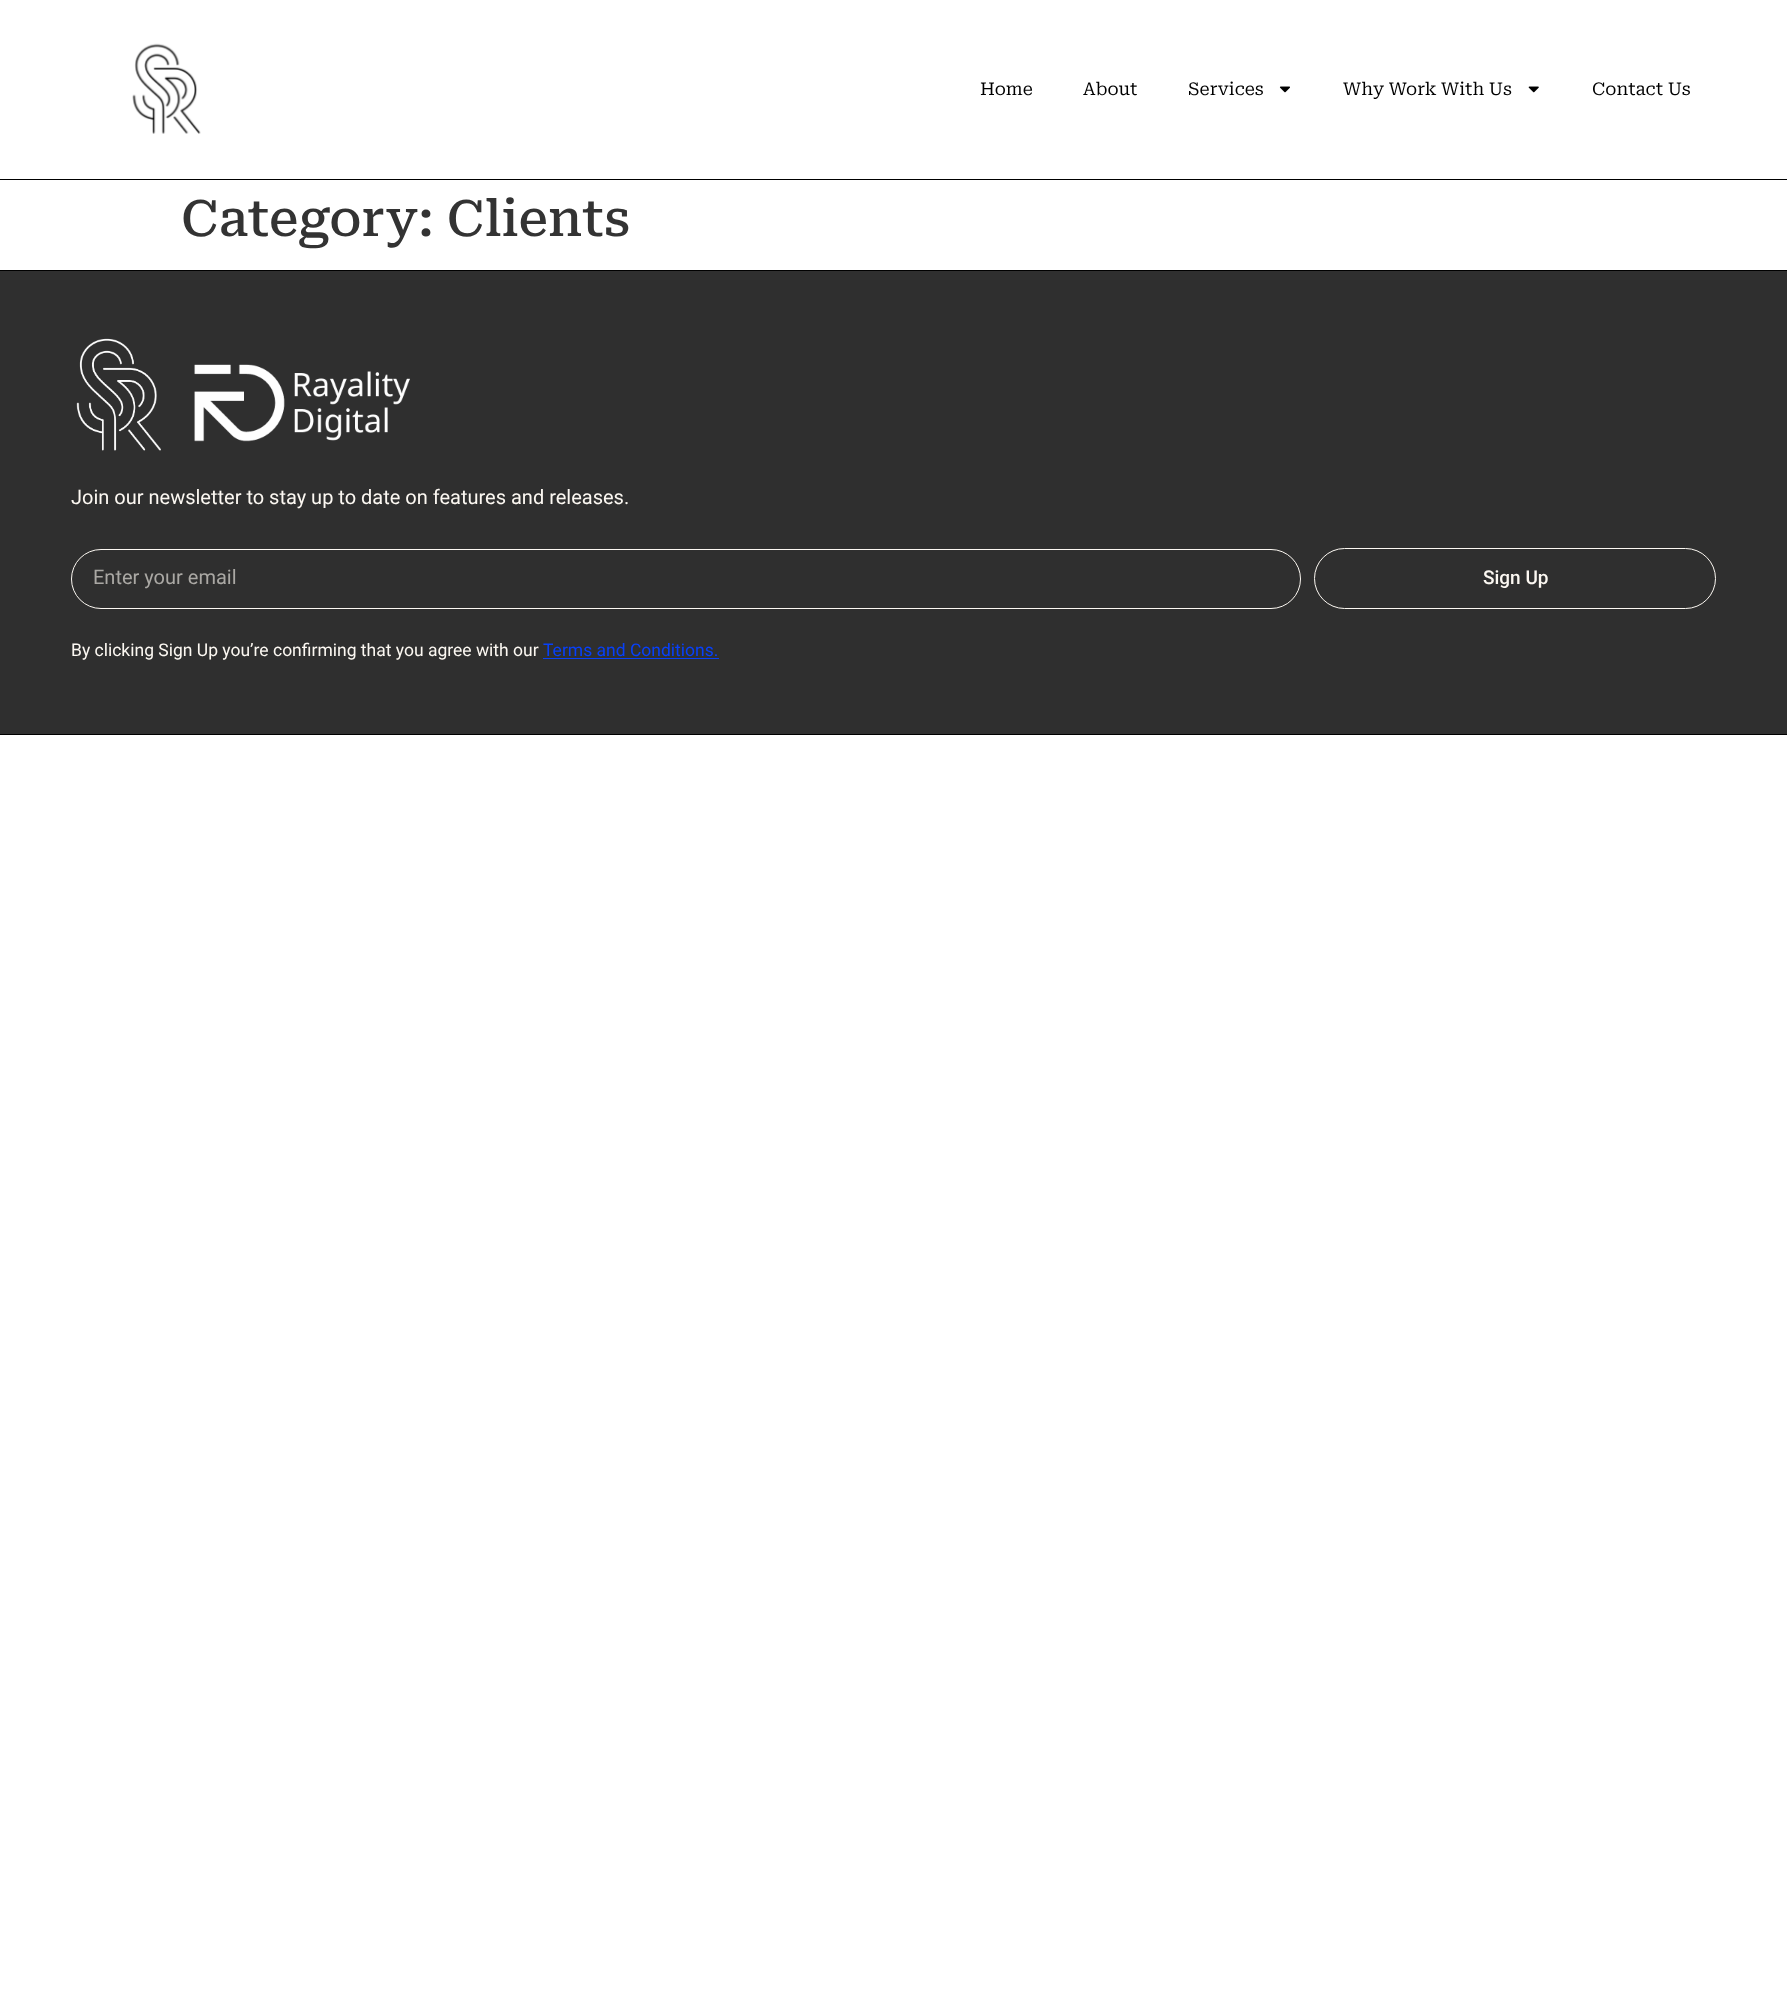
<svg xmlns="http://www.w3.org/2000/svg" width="1787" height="2013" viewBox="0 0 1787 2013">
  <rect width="100%" height="100%" fill="#ffffff"/>
  <rect x="0" y="179" width="1787" height="1" fill="#000000"/>
  <image x="132" y="43" width="69" height="91" href="img1.png"/>
  <text x="980" y="95" font-family="Roboto Serif" font-size="17.5" fill="#000000">Home</text>
  <text x="1083" y="95" font-family="Roboto Serif" font-size="17.5" fill="#000000">About</text>
  <text x="1188" y="95" font-family="Roboto Serif" font-size="17.5" fill="#000000">Services</text>
  <image x="1279" y="86" width="11" height="7" href="img2.png"/>
  <text x="1343" y="95" font-family="Roboto Serif" font-size="17.5" fill="#000000">Why Work With Us</text>
  <image x="1528" y="86" width="11" height="7" href="img3.png"/>
  <text x="1592" y="95" font-family="Roboto Serif" font-size="17.5" fill="#000000">Contact Us</text>
  <text x="181" y="236" font-family="Roboto Serif" font-size="50" font-weight="500" fill="#333333">Category: Clients</text>
  <rect x="0" y="271" width="1787" height="463" fill="#2f2f2f"/>
  <rect x="0" y="270" width="1787" height="1" fill="#000000"/>
  <rect x="0" y="734" width="1787" height="1" fill="#000000"/>
  <image x="76" y="338" width="85" height="113" href="img4.png"/>
  <image x="194" y="364" width="216" height="78" href="img5.png"/>
  <text x="71" y="504" font-family="Roboto" font-size="20" fill="#fcf8f2">Join our newsletter to stay up to date on features and releases.</text>
  <rect x="71.5" y="549.5" width="1229" height="59" rx="29.5" fill="none" stroke="#fcf8f2"/>
  <text x="93" y="584" font-family="Roboto" font-size="20" fill="#aaa8a4">Enter your email</text>
  <rect x="1314.5" y="548.5" width="401" height="60" rx="30" fill="none" stroke="#fcf8f2"/>
  <text x="1483" y="584" font-family="Roboto" font-size="19" font-weight="500" fill="#fcf8f2">Sign Up</text>
  <text x="71" y="656" font-family="Roboto" font-size="17.5" fill="#fcf8f2">By clicking Sign Up you’re confirming that you agree with our</text>
  <text x="543" y="656" font-family="Roboto" font-size="17.5" fill="#0740f9">Terms and Conditions.</text>
  <rect x="543" y="658" width="176" height="1" fill="#0740f9"/>
</svg>
